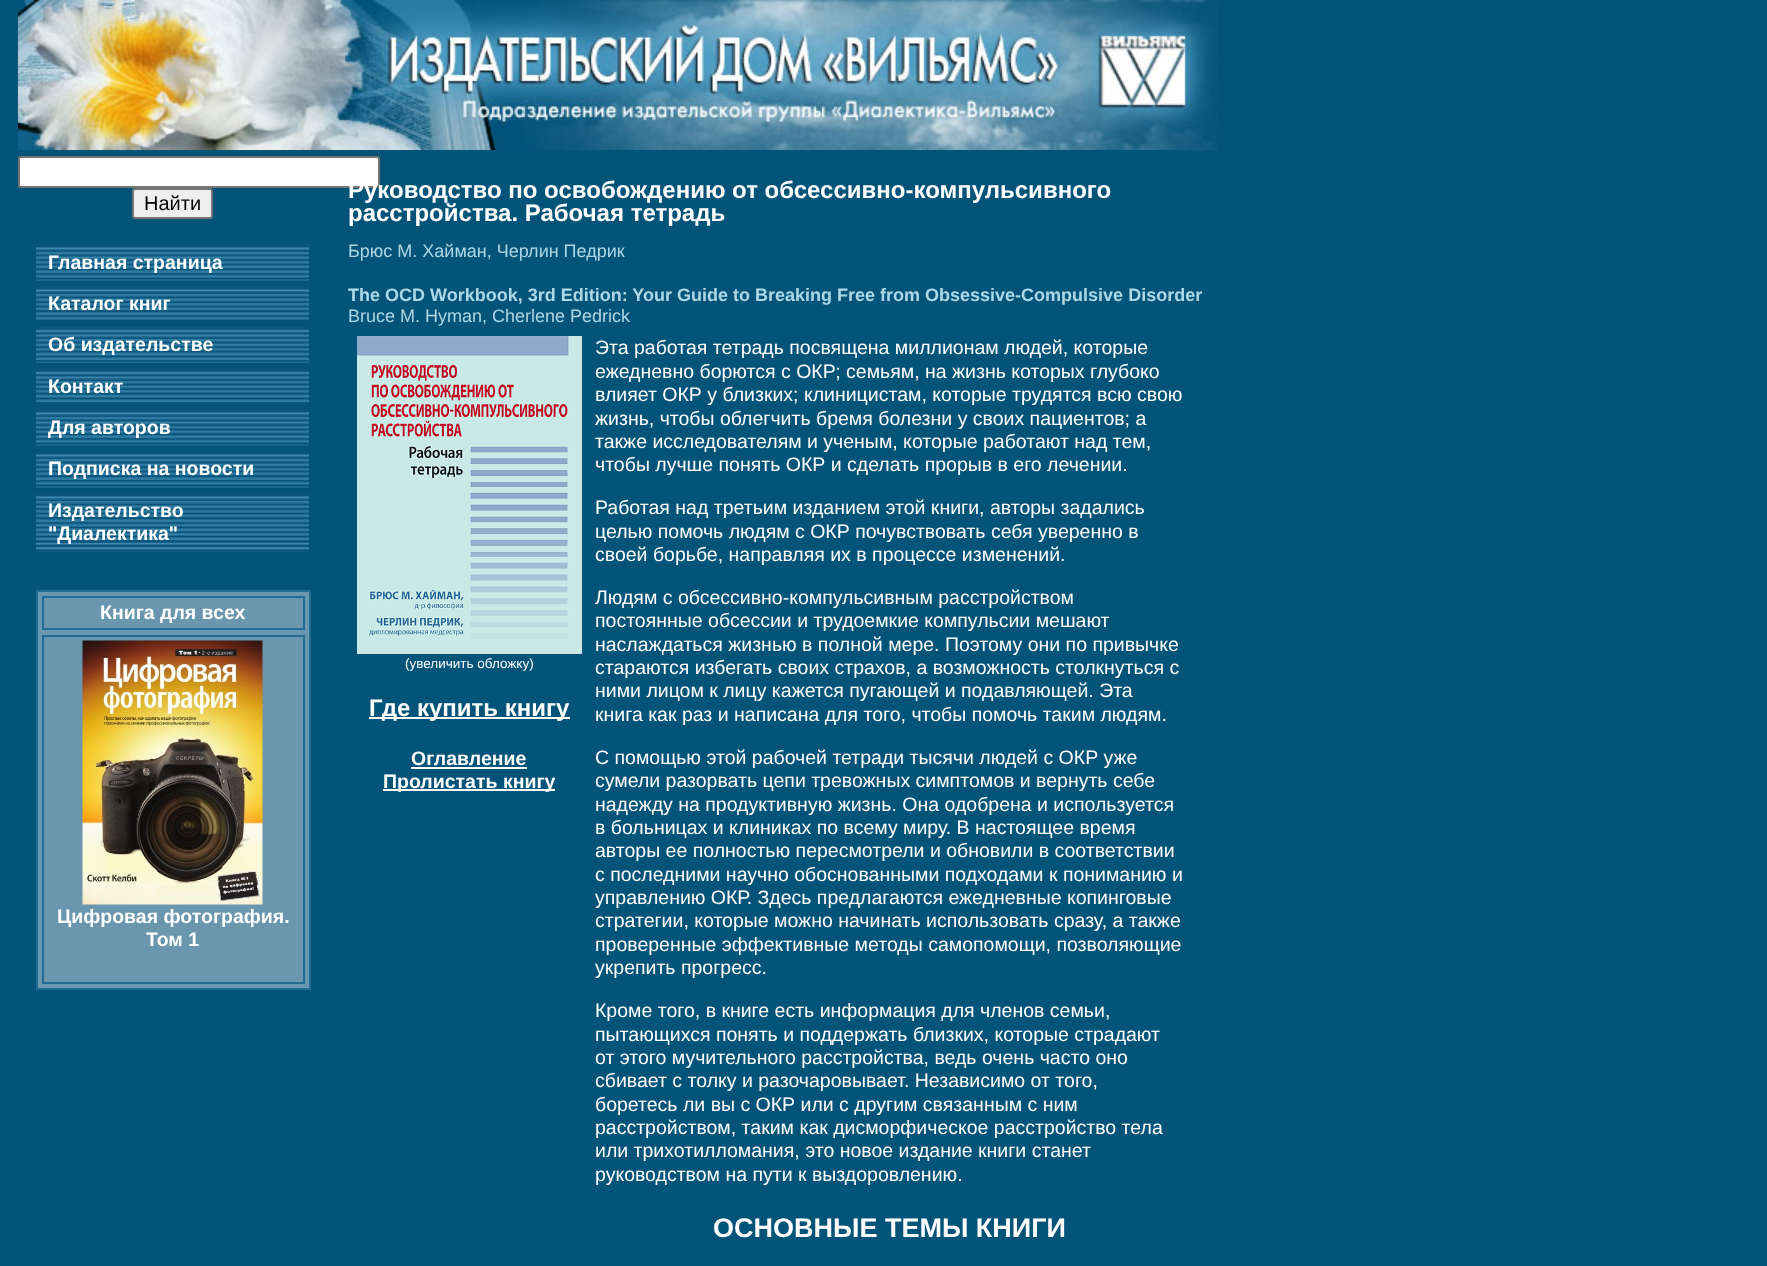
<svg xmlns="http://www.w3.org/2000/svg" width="1767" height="1266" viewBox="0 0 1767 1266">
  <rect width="100%" height="100%" fill="#045479"/>
  <image x="18" y="0" width="1200" height="150" href="img1.png"/>
  <rect x="19" y="157" width="360" height="30" rx="2" fill="#ffffff" stroke="#767676" stroke-width="2"/>
  <rect x="133" y="189" width="79" height="29" rx="2" fill="#efefef" stroke="#767676" stroke-width="2"/>
  <text x="144" y="210" font-family="Liberation Sans" font-size="20" fill="#000000">Найти</text>
  <image x="36" y="244" width="273" height="37" href="img2.png"/>
  <text x="48" y="269" font-family="Liberation Sans" font-size="19.5" font-weight="bold" fill="#ffffff">Главная страница</text>
  <image x="36" y="286" width="273" height="34" href="img3.png"/>
  <text x="48" y="310" font-family="Liberation Sans" font-size="19.5" font-weight="bold" fill="#ffffff">Каталог книг</text>
  <image x="36" y="327" width="273" height="36" href="img4.png"/>
  <text x="48" y="351" font-family="Liberation Sans" font-size="19.5" font-weight="bold" fill="#ffffff">Об издательстве</text>
  <image x="36" y="369" width="273" height="35" href="img5.png"/>
  <text x="48" y="393" font-family="Liberation Sans" font-size="19.5" font-weight="bold" fill="#ffffff">Контакт</text>
  <image x="36" y="409" width="273" height="37" href="img2.png"/>
  <text x="48" y="434" font-family="Liberation Sans" font-size="19.5" font-weight="bold" fill="#ffffff">Для авторов</text>
  <image x="36" y="451" width="273" height="37" href="img2.png"/>
  <text x="48" y="475" font-family="Liberation Sans" font-size="19.5" font-weight="bold" fill="#ffffff">Подписка на новости</text>
  <image x="36" y="493" width="273" height="59" href="img6.png"/>
  <text x="48" y="517" font-family="Liberation Sans" font-size="19.5" font-weight="bold" fill="#ffffff">Издательство</text>
  <text x="48" y="540" font-family="Liberation Sans" font-size="19.5" font-weight="bold" fill="#ffffff">"Диалектика"</text>
  <rect x="37" y="591" width="273" height="398" fill="#6a97ad" stroke="#216c94" stroke-width="2"/>
  <rect x="43" y="597" width="261" height="32" fill="none" stroke="#216c94" stroke-width="2"/>
  <text x="100" y="619" font-family="Liberation Sans" font-size="19.5" font-weight="bold" fill="#ffffff">Книга для всех</text>
  <rect x="43" y="636" width="261" height="347" fill="none" stroke="#216c94" stroke-width="2"/>
  <image x="82" y="640" width="181" height="265" href="img7.png"/>
  <text x="57" y="923" font-family="Liberation Sans" font-size="19.5" font-weight="bold" fill="#ffffff">Цифровая фотография.</text>
  <text x="146" y="946" font-family="Liberation Sans" font-size="19.5" font-weight="bold" fill="#ffffff">Том 1</text>
  <text x="348" y="198" font-family="Liberation Sans" font-size="24" font-weight="bold" fill="#ffffff">Руководство по освобождению от обсессивно-компульсивного</text>
  <text x="348" y="221" font-family="Liberation Sans" font-size="24" font-weight="bold" fill="#ffffff">расстройства. Рабочая тетрадь</text>
  <text x="348" y="257" font-family="Liberation Sans" font-size="18" fill="#add8e6">Брюс М. Хайман, Черлин Педрик</text>
  <text x="348" y="301" font-family="Liberation Sans" font-size="18" font-weight="bold" fill="#add8e6">The OCD Workbook, 3rd Edition: Your Guide to Breaking Free from Obsessive-Compulsive Disorder</text>
  <text x="348" y="322" font-family="Liberation Sans" font-size="18" fill="#add8e6">Bruce M. Hyman, Cherlene Pedrick</text>
  <image x="357" y="336" width="225" height="318" href="img8.png"/>
  <text x="405" y="668" font-family="Liberation Sans" font-size="13.5" fill="#ffffff">(увеличить обложку)</text>
  <rect x="369" y="717" width="201" height="2" fill="#ffffff"/>
  <text x="369" y="716" font-family="Liberation Sans" font-size="24" font-weight="bold" fill="#ffffff">Где купить книгу</text>
  <text x="411" y="765" font-family="Liberation Sans" font-size="19.5" font-weight="bold" fill="#ffffff">Оглавление</text>
  <rect x="411" y="767" width="116" height="2" fill="#ffffff"/>
  <rect x="383" y="789" width="172" height="2" fill="#ffffff"/>
  <text x="383" y="788" font-family="Liberation Sans" font-size="19.5" font-weight="bold" fill="#ffffff">Пролистать книгу</text>
  <text x="595" y="354" font-family="Liberation Sans" font-size="19.5" fill="#ffffff">Эта работая тетрадь посвящена миллионам людей, которые</text>
  <text x="595" y="378" font-family="Liberation Sans" font-size="19.5" fill="#ffffff">ежедневно борются с ОКР; семьям, на жизнь которых глубоко</text>
  <text x="595" y="401" font-family="Liberation Sans" font-size="19.5" fill="#ffffff">влияет ОКР у близких; клиницистам, которые трудятся всю свою</text>
  <text x="595" y="425" font-family="Liberation Sans" font-size="19.5" fill="#ffffff">жизнь, чтобы облегчить бремя болезни у своих пациентов; а</text>
  <text x="595" y="448" font-family="Liberation Sans" font-size="19.5" fill="#ffffff">также исследователям и ученым, которые работают над тем,</text>
  <text x="595" y="471" font-family="Liberation Sans" font-size="19.5" fill="#ffffff">чтобы лучше понять ОКР и сделать прорыв в его лечении.</text>
  <text x="595" y="514" font-family="Liberation Sans" font-size="19.5" fill="#ffffff">Работая над третьим изданием этой книги, авторы задались</text>
  <text x="595" y="538" font-family="Liberation Sans" font-size="19.5" fill="#ffffff">целью помочь людям с ОКР почувствовать себя уверенно в</text>
  <text x="595" y="561" font-family="Liberation Sans" font-size="19.5" fill="#ffffff">своей борьбе, направляя их в процессе изменений.</text>
  <text x="595" y="604" font-family="Liberation Sans" font-size="19.5" fill="#ffffff">Людям с обсессивно-компульсивным расстройством</text>
  <text x="595" y="627" font-family="Liberation Sans" font-size="19.5" fill="#ffffff">постоянные обсессии и трудоемкие компульсии мешают</text>
  <text x="595" y="651" font-family="Liberation Sans" font-size="19.5" fill="#ffffff">наслаждаться жизнью в полной мере. Поэтому они по привычке</text>
  <text x="595" y="674" font-family="Liberation Sans" font-size="19.5" fill="#ffffff">стараются избегать своих страхов, а возможность столкнуться с</text>
  <text x="595" y="697" font-family="Liberation Sans" font-size="19.5" fill="#ffffff">ними лицом к лицу кажется пугающей и подавляющей. Эта</text>
  <text x="595" y="721" font-family="Liberation Sans" font-size="19.5" fill="#ffffff">книга как раз и написана для того, чтобы помочь таким людям.</text>
  <text x="595" y="764" font-family="Liberation Sans" font-size="19.5" fill="#ffffff">С помощью этой рабочей тетради тысячи людей с ОКР уже</text>
  <text x="595" y="787" font-family="Liberation Sans" font-size="19.5" fill="#ffffff">сумели разорвать цепи тревожных симптомов и вернуть себе</text>
  <text x="595" y="811" font-family="Liberation Sans" font-size="19.5" fill="#ffffff">надежду на продуктивную жизнь. Она одобрена и используется</text>
  <text x="595" y="834" font-family="Liberation Sans" font-size="19.5" fill="#ffffff">в больницах и клиниках по всему миру. В настоящее время</text>
  <text x="595" y="857" font-family="Liberation Sans" font-size="19.5" fill="#ffffff">авторы ее полностью пересмотрели и обновили в соответствии</text>
  <text x="595" y="881" font-family="Liberation Sans" font-size="19.5" fill="#ffffff">с последними научно обоснованными подходами к пониманию и</text>
  <text x="595" y="904" font-family="Liberation Sans" font-size="19.5" fill="#ffffff">управлению ОКР. Здесь предлагаются ежедневные копинговые</text>
  <text x="595" y="927" font-family="Liberation Sans" font-size="19.5" fill="#ffffff">стратегии, которые можно начинать использовать сразу, а также</text>
  <text x="595" y="951" font-family="Liberation Sans" font-size="19.5" fill="#ffffff">проверенные эффективные методы самопомощи, позволяющие</text>
  <text x="595" y="974" font-family="Liberation Sans" font-size="19.5" fill="#ffffff">укрепить прогресс.</text>
  <text x="595" y="1017" font-family="Liberation Sans" font-size="19.5" fill="#ffffff">Кроме того, в книге есть информация для членов семьи,</text>
  <text x="595" y="1041" font-family="Liberation Sans" font-size="19.5" fill="#ffffff">пытающихся понять и поддержать близких, которые страдают</text>
  <text x="595" y="1064" font-family="Liberation Sans" font-size="19.5" fill="#ffffff">от этого мучительного расстройства, ведь очень часто оно</text>
  <text x="595" y="1087" font-family="Liberation Sans" font-size="19.5" fill="#ffffff">сбивает с толку и разочаровывает. Независимо от того,</text>
  <text x="595" y="1111" font-family="Liberation Sans" font-size="19.5" fill="#ffffff">боретесь ли вы с ОКР или с другим связанным с ним</text>
  <text x="595" y="1134" font-family="Liberation Sans" font-size="19.5" fill="#ffffff">расстройством, таким как дисморфическое расстройство тела</text>
  <text x="595" y="1157" font-family="Liberation Sans" font-size="19.5" fill="#ffffff">или трихотилломания, это новое издание книги станет</text>
  <text x="595" y="1181" font-family="Liberation Sans" font-size="19.5" fill="#ffffff">руководством на пути к выздоровлению.</text>
  <text x="713" y="1237" font-family="Liberation Sans" font-size="27" font-weight="bold" fill="#ffffff">ОСНОВНЫЕ ТЕМЫ КНИГИ</text>
</svg>
